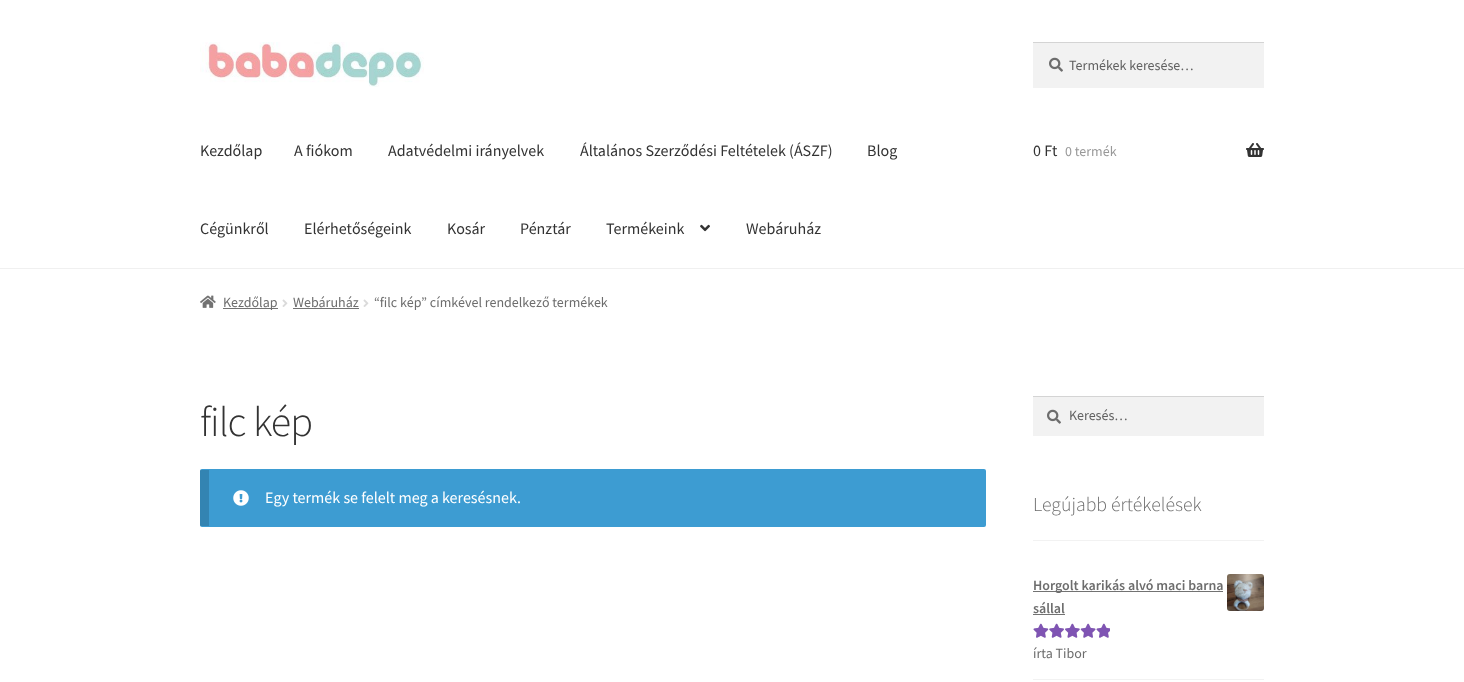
<svg xmlns="http://www.w3.org/2000/svg" width="1464" height="682" viewBox="0 0 1464 682">
  <rect width="100%" height="100%" fill="#ffffff"/>
  <rect x="0" y="268" width="1464" height="1" fill="#f0f0f0"/>
  <image x="200" y="42" width="224" height="45" href="img1.png"/>
  <rect x="1033" y="43" width="231" height="45" fill="#f2f2f2"/>
  <image x="1049" y="57" width="14" height="15" href="img2.png"/>
  <rect x="1033" y="42" width="231" height="1" fill="#d4d4d4"/>
  <text x="1069" y="70" font-family="Source Sans Pro" font-size="14" fill="#616161">Termékek keresése…</text>
  <text x="200" y="156" font-family="Source Sans Pro" font-size="16" fill="#333333">Kezdőlap</text>
  <text x="294" y="156" font-family="Source Sans Pro" font-size="16" fill="#333333">A fiókom</text>
  <text x="388" y="156" font-family="Source Sans Pro" font-size="16" fill="#333333">Adatvédelmi irányelvek</text>
  <text x="580" y="156" font-family="Source Sans Pro" font-size="16" fill="#333333">Általános Szerződési Feltételek (ÁSZF)</text>
  <text x="867" y="156" font-family="Source Sans Pro" font-size="16" fill="#333333">Blog</text>
  <text x="200" y="234" font-family="Source Sans Pro" font-size="16" fill="#333333">Cégünkről</text>
  <text x="304" y="234" font-family="Source Sans Pro" font-size="16" fill="#333333">Elérhetőségeink</text>
  <text x="447" y="234" font-family="Source Sans Pro" font-size="16" fill="#333333">Kosár</text>
  <text x="520" y="234" font-family="Source Sans Pro" font-size="16" fill="#333333">Pénztár</text>
  <text x="606" y="234" font-family="Source Sans Pro" font-size="16" fill="#333333">Termékeink</text>
  <image x="700" y="224" width="10" height="8" href="img3.png"/>
  <text x="746" y="234" font-family="Source Sans Pro" font-size="16" fill="#333333">Webáruház</text>
  <text x="1033" y="156" font-family="Source Sans Pro" font-size="16" fill="#333333">0 Ft</text>
  <text x="1065" y="156" font-family="Source Sans Pro" font-size="14" fill="#999999">0 termék</text>
  <image x="1246" y="143" width="18" height="14" href="img4.png"/>
  <image x="200" y="295" width="16" height="13" href="img5.png"/>
  <rect x="223" y="308" width="55" height="1" fill="#727272"/>
  <text x="223" y="307" font-family="Source Sans Pro" font-size="14" fill="#6d6d6d">Kezdőlap</text>
  <image x="282" y="299" width="6" height="8" href="img6.png"/>
  <text x="293" y="307" font-family="Source Sans Pro" font-size="14" fill="#6d6d6d">Webáruház</text>
  <rect x="293" y="308" width="66" height="1" fill="#727272"/>
  <image x="363" y="299" width="6" height="8" href="img6.png"/>
  <text x="374" y="307" font-family="Source Sans Pro" font-size="14" fill="#6d6d6d">“filc kép” címkével rendelkező termékek</text>
  <text x="200" y="436" font-family="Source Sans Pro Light" font-size="42" font-weight="300" letter-spacing="-1" fill="#333333">filc kép</text>
  <rect x="200" y="469" width="786" height="58" rx="2" fill="#3d9cd2"/>
  <rect x="200" y="470" width="9" height="56" fill="#000000" fill-opacity="0.15"/>
  <image x="233" y="490" width="16" height="16" href="img7.png"/>
  <text x="265" y="503" font-family="Source Sans Pro" font-size="16" fill="#ffffff">Egy termék se felelt meg a keresésnek.</text>
  <rect x="1033" y="397" width="231" height="39" fill="#f2f2f2"/>
  <image x="1047" y="409" width="14" height="15" href="img2.png"/>
  <rect x="1033" y="396" width="231" height="1" fill="#d4d4d4"/>
  <text x="1069" y="420" font-family="Source Sans Pro" font-size="14" fill="#616161">Keresés…</text>
  <rect x="1033" y="540" width="231" height="1" fill="#f2f2f2"/>
  <text x="1033" y="511" font-family="Source Sans Pro Light" font-size="19.75" font-weight="300" fill="#6d6d6d">Legújabb értékelések</text>
  <rect x="1033" y="679" width="231" height="1" fill="#f2f2f2"/>
  <rect x="1033" y="591" width="190" height="1" fill="#727272"/>
  <text x="1033" y="590" font-family="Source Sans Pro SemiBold" font-size="14" font-weight="600" fill="#6d6d6d">Horgolt karikás alvó maci barna</text>
  <image x="1227" y="574" width="37" height="37" href="img8.png"/>
  <text x="1033" y="613" font-family="Source Sans Pro SemiBold" font-size="14" font-weight="600" fill="#6d6d6d">sállal</text>
  <rect x="1033" y="614" width="32" height="1" fill="#727272"/>
  <image x="1033" y="623" width="77" height="15" href="img9.png"/>
  <image x="1033" y="623" width="77" height="15" href="img10.png"/>
  <text x="1033" y="658" font-family="Source Sans Pro" font-size="14" fill="#6d6d6d">írta Tibor</text>
</svg>
